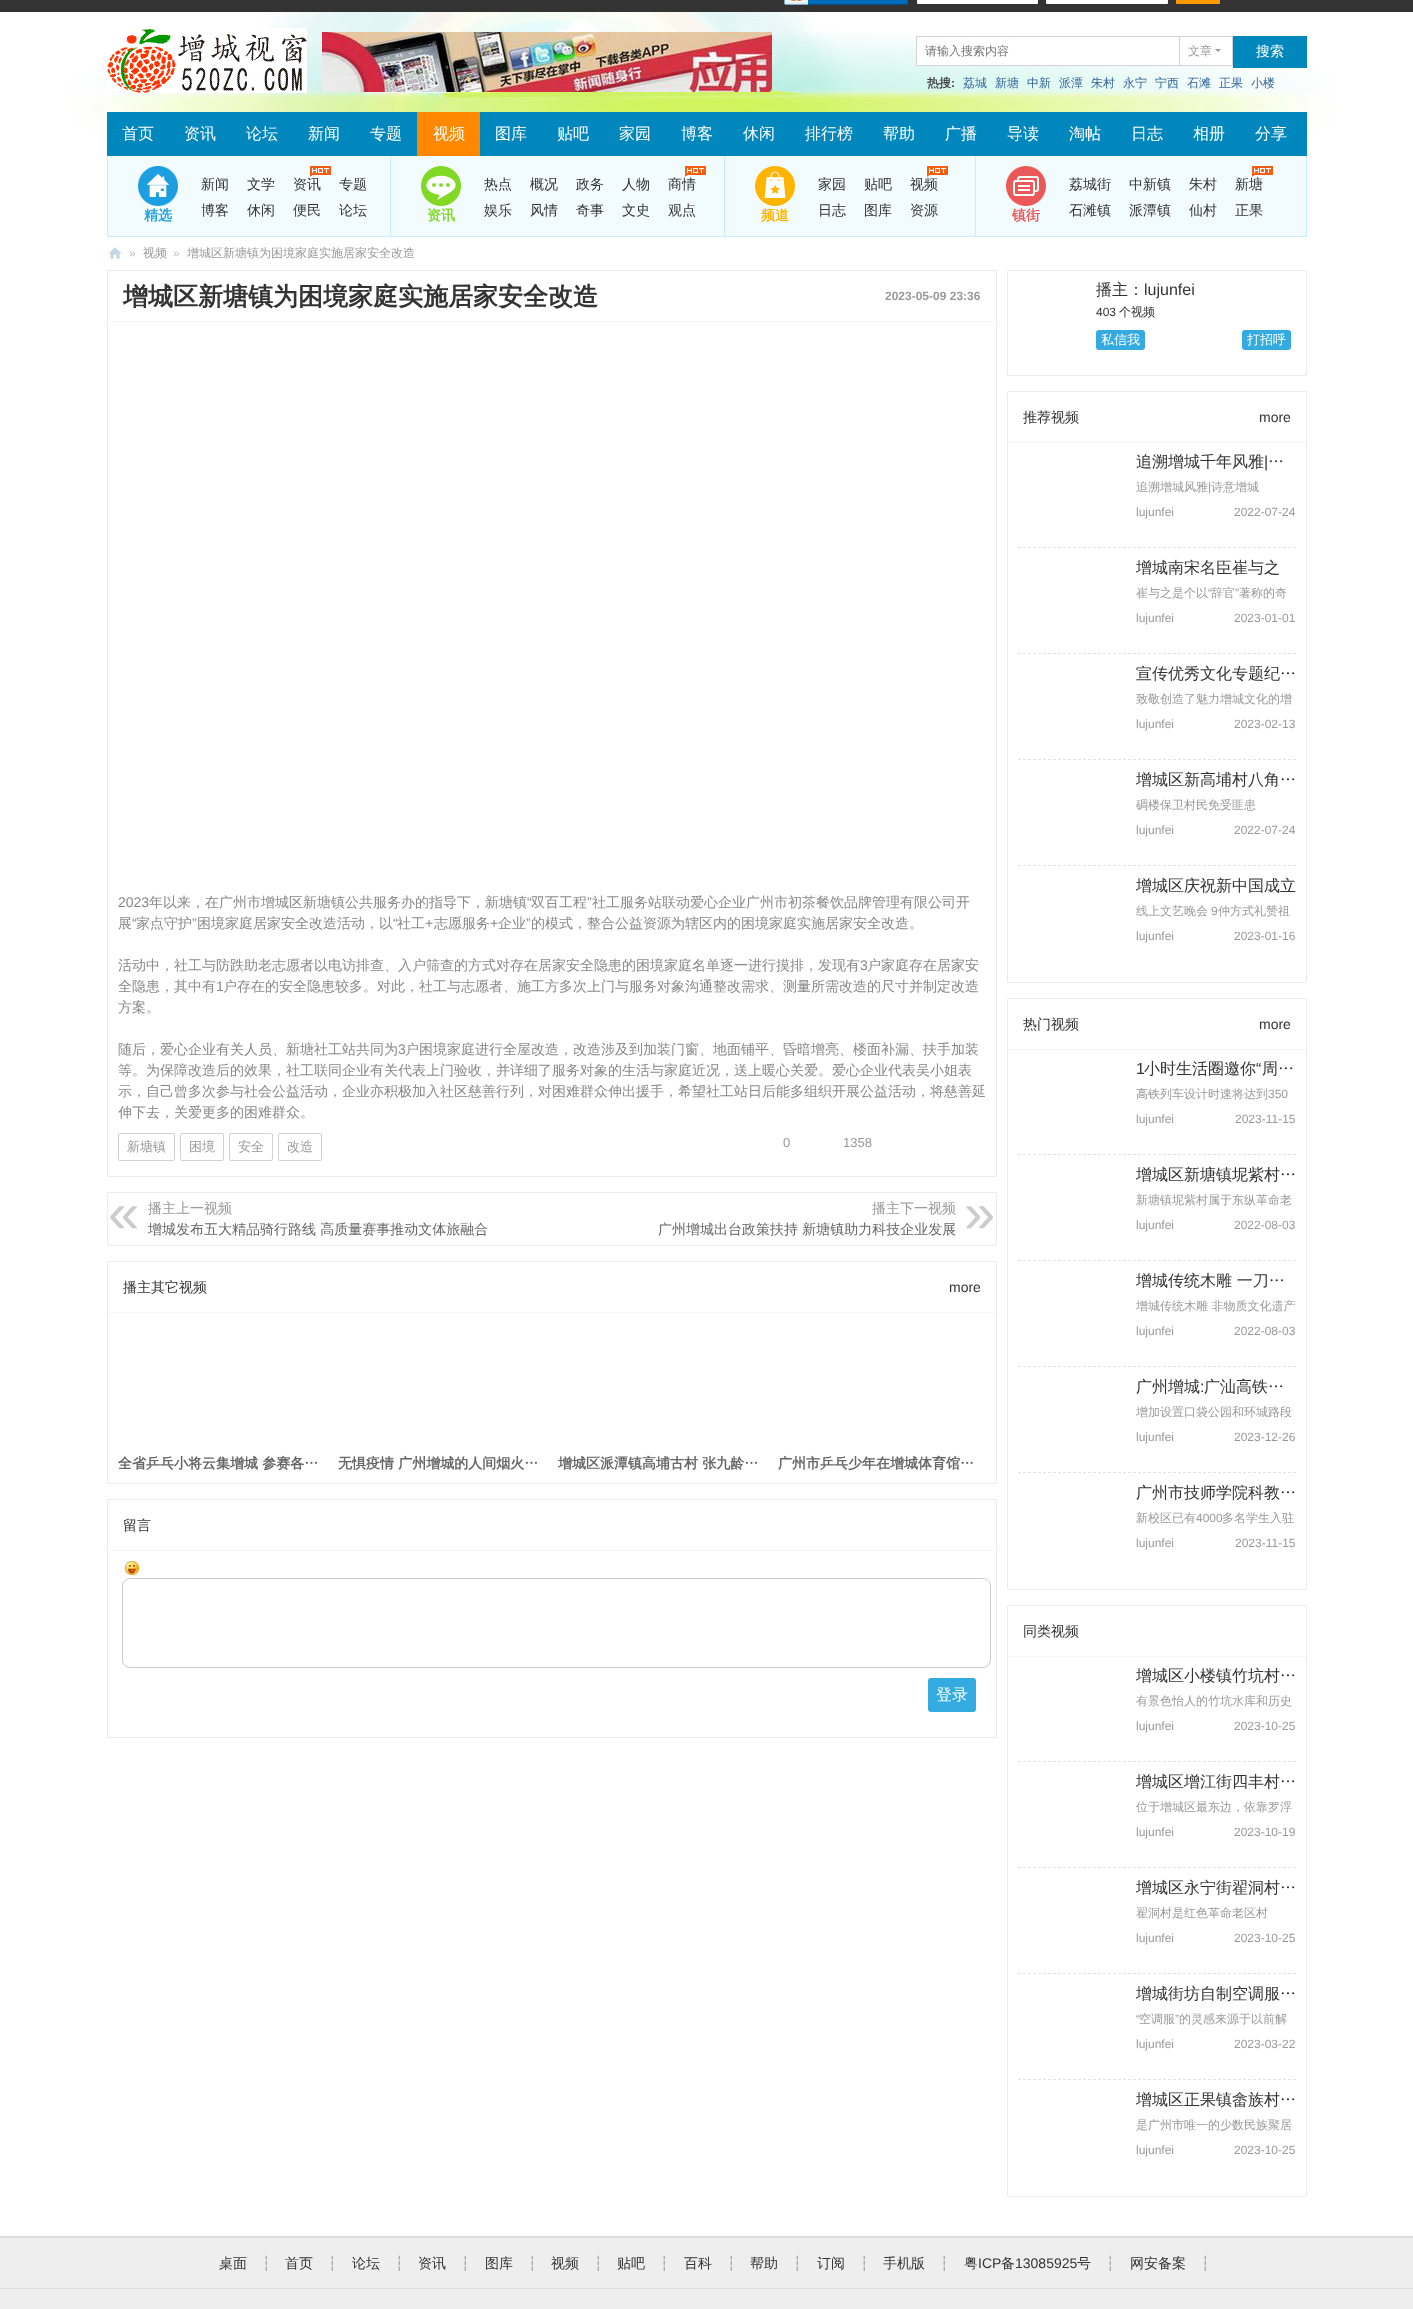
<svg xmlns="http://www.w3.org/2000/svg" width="1413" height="2309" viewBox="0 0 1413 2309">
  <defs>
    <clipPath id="clip1"><rect x="558" y="1453" width="200" height="20"/></clipPath>
    <clipPath id="clip2"><rect x="1096" y="281" width="200" height="18"/></clipPath>
    <clipPath id="clip3"><rect x="1136" y="559" width="160" height="18"/></clipPath>
    <clipPath id="clip4"><rect x="1136" y="771" width="160" height="18"/></clipPath>
    <clipPath id="clip5"><rect x="1136" y="877" width="160" height="18"/></clipPath>
    <clipPath id="clip6"><rect x="1136" y="902" width="160" height="18"/></clipPath>
    <clipPath id="clip7"><rect x="1136" y="1166" width="160" height="18"/></clipPath>
    <clipPath id="clip8"><rect x="1136" y="1272" width="160" height="18"/></clipPath>
    <clipPath id="clip9"><rect x="1136" y="1297" width="160" height="18"/></clipPath>
    <clipPath id="clip10"><rect x="1136" y="1403" width="160" height="18"/></clipPath>
    <clipPath id="clip11"><rect x="1136" y="1667" width="160" height="18"/></clipPath>
    <clipPath id="clip12"><rect x="1136" y="1773" width="160" height="18"/></clipPath>
    <clipPath id="clip13"><rect x="1136" y="1879" width="160" height="18"/></clipPath>
    <clipPath id="clip14"><rect x="1136" y="1985" width="160" height="18"/></clipPath>
    <clipPath id="clip15"><rect x="1136" y="2091" width="160" height="18"/></clipPath>
  </defs>
  <rect width="100%" height="100%" fill="#ffffff"/>
  <rect x="0" y="0" width="1413" height="12" fill="#333333"/>
  <image x="784" y="0" width="124" height="5" href="img1.png"/>
  <rect x="917" y="-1" width="121" height="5" rx="1" fill="#ffffff"/>
  <rect x="1046" y="-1" width="122" height="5" rx="1" fill="#ffffff"/>
  <rect x="1176" y="-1" width="44" height="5" rx="1" fill="#ff9900"/>
  <image x="71" y="12" width="1264" height="167" href="img2.png"/>
  <image x="107" y="28" width="200" height="65" href="img3.png"/>
  <image x="322" y="32" width="450" height="60" href="img4.png"/>
  <rect x="916.5" y="36.5" width="316" height="29" fill="#ffffff" stroke="#d3d3d3"/>
  <text x="925" y="55" font-family="WenQuanYi Zen Hei" font-size="12" font-weight="500" fill="#757575">请输入搜索内容</text>
  <rect x="1179" y="37" width="1" height="29" fill="#d3d3d3"/>
  <text x="1188" y="55" font-family="WenQuanYi Zen Hei" font-size="12" font-weight="500" fill="#999999">文章</text>
  <path d="M1215 49H1221L1218 52Z" fill="#999999"/>
  <rect x="1233" y="36" width="74" height="32" fill="#0087bc"/>
  <text x="1256" y="56" font-family="WenQuanYi Zen Hei" font-size="14" font-weight="500" fill="#ffffff">搜索</text>
  <text x="927" y="87" font-family="WenQuanYi Zen Hei" font-size="12" font-weight="bold" fill="#444444">热搜</text>
  <text x="951" y="87" font-family="Liberation Sans" font-size="12" font-weight="bold" fill="#444444">:</text>
  <text x="963" y="87" font-family="WenQuanYi Zen Hei" font-size="12" font-weight="500" fill="#336699">荔城</text>
  <text x="995" y="87" font-family="WenQuanYi Zen Hei" font-size="12" font-weight="500" fill="#336699">新塘</text>
  <text x="1027" y="87" font-family="WenQuanYi Zen Hei" font-size="12" font-weight="500" fill="#336699">中新</text>
  <text x="1059" y="87" font-family="WenQuanYi Zen Hei" font-size="12" font-weight="500" fill="#336699">派潭</text>
  <text x="1091" y="87" font-family="WenQuanYi Zen Hei" font-size="12" font-weight="500" fill="#336699">朱村</text>
  <text x="1123" y="87" font-family="WenQuanYi Zen Hei" font-size="12" font-weight="500" fill="#336699">永宁</text>
  <text x="1155" y="87" font-family="WenQuanYi Zen Hei" font-size="12" font-weight="500" fill="#336699">宁西</text>
  <text x="1187" y="87" font-family="WenQuanYi Zen Hei" font-size="12" font-weight="500" fill="#336699">石滩</text>
  <text x="1219" y="87" font-family="WenQuanYi Zen Hei" font-size="12" font-weight="500" fill="#336699">正果</text>
  <text x="1251" y="87" font-family="WenQuanYi Zen Hei" font-size="12" font-weight="500" fill="#336699">小楼</text>
  <rect x="107" y="112" width="1200" height="44" fill="#0087bd"/>
  <text x="122" y="139" font-family="WenQuanYi Zen Hei" font-size="16" font-weight="500" fill="#ffffff">首页</text>
  <text x="184" y="139" font-family="WenQuanYi Zen Hei" font-size="16" font-weight="500" fill="#ffffff">资讯</text>
  <text x="246" y="139" font-family="WenQuanYi Zen Hei" font-size="16" font-weight="500" fill="#ffffff">论坛</text>
  <text x="308" y="139" font-family="WenQuanYi Zen Hei" font-size="16" font-weight="500" fill="#ffffff">新闻</text>
  <text x="370" y="139" font-family="WenQuanYi Zen Hei" font-size="16" font-weight="500" fill="#ffffff">专题</text>
  <rect x="417" y="112" width="63" height="44" fill="#ff8800"/>
  <text x="433" y="139" font-family="WenQuanYi Zen Hei" font-size="16" font-weight="500" fill="#ffffff">视频</text>
  <text x="495" y="139" font-family="WenQuanYi Zen Hei" font-size="16" font-weight="500" fill="#ffffff">图库</text>
  <text x="557" y="139" font-family="WenQuanYi Zen Hei" font-size="16" font-weight="500" fill="#ffffff">贴吧</text>
  <text x="619" y="139" font-family="WenQuanYi Zen Hei" font-size="16" font-weight="500" fill="#ffffff">家园</text>
  <text x="681" y="139" font-family="WenQuanYi Zen Hei" font-size="16" font-weight="500" fill="#ffffff">博客</text>
  <text x="743" y="139" font-family="WenQuanYi Zen Hei" font-size="16" font-weight="500" fill="#ffffff">休闲</text>
  <text x="805" y="139" font-family="WenQuanYi Zen Hei" font-size="16" font-weight="500" fill="#ffffff">排行榜</text>
  <text x="883" y="139" font-family="WenQuanYi Zen Hei" font-size="16" font-weight="500" fill="#ffffff">帮助</text>
  <text x="945" y="139" font-family="WenQuanYi Zen Hei" font-size="16" font-weight="500" fill="#ffffff">广播</text>
  <text x="1007" y="139" font-family="WenQuanYi Zen Hei" font-size="16" font-weight="500" fill="#ffffff">导读</text>
  <text x="1069" y="139" font-family="WenQuanYi Zen Hei" font-size="16" font-weight="500" fill="#ffffff">淘帖</text>
  <text x="1131" y="139" font-family="WenQuanYi Zen Hei" font-size="16" font-weight="500" fill="#ffffff">日志</text>
  <text x="1193" y="139" font-family="WenQuanYi Zen Hei" font-size="16" font-weight="500" fill="#ffffff">相册</text>
  <text x="1255" y="139" font-family="WenQuanYi Zen Hei" font-size="16" font-weight="500" fill="#ffffff">分享</text>
  <rect x="108" y="156" width="1198" height="80" fill="#f2fcff"/>
  <rect x="1306" y="156" width="1" height="81" fill="#c5ecff"/>
  <rect x="107" y="236" width="1200" height="1" fill="#c5ecff"/>
  <rect x="107" y="156" width="1" height="81" fill="#c5ecff"/>
  <image x="138" y="166" width="40" height="40" href="img5.png"/>
  <text x="144" y="220" font-family="WenQuanYi Zen Hei" font-size="14" font-weight="bold" fill="#1fa1e2">精选</text>
  <text x="201" y="189" font-family="WenQuanYi Zen Hei" font-size="14" font-weight="500" fill="#333333">新闻</text>
  <text x="247" y="189" font-family="WenQuanYi Zen Hei" font-size="14" font-weight="500" fill="#333333">文学</text>
  <image x="310" y="166" width="21" height="11" href="img6.png"/>
  <text x="293" y="189" font-family="WenQuanYi Zen Hei" font-size="14" font-weight="500" fill="#333333">资讯</text>
  <text x="339" y="189" font-family="WenQuanYi Zen Hei" font-size="14" font-weight="500" fill="#333333">专题</text>
  <text x="201" y="215" font-family="WenQuanYi Zen Hei" font-size="14" font-weight="500" fill="#333333">博客</text>
  <text x="247" y="215" font-family="WenQuanYi Zen Hei" font-size="14" font-weight="500" fill="#333333">休闲</text>
  <text x="293" y="215" font-family="WenQuanYi Zen Hei" font-size="14" font-weight="500" fill="#333333">便民</text>
  <text x="339" y="215" font-family="WenQuanYi Zen Hei" font-size="14" font-weight="500" fill="#333333">论坛</text>
  <rect x="390" y="156" width="1" height="80" fill="#c5ecff"/>
  <image x="421" y="166" width="40" height="40" href="img7.png"/>
  <text x="427" y="220" font-family="WenQuanYi Zen Hei" font-size="14" font-weight="bold" fill="#81d925">资讯</text>
  <text x="484" y="189" font-family="WenQuanYi Zen Hei" font-size="14" font-weight="500" fill="#333333">热点</text>
  <text x="530" y="189" font-family="WenQuanYi Zen Hei" font-size="14" font-weight="500" fill="#333333">概况</text>
  <text x="576" y="189" font-family="WenQuanYi Zen Hei" font-size="14" font-weight="500" fill="#333333">政务</text>
  <text x="622" y="189" font-family="WenQuanYi Zen Hei" font-size="14" font-weight="500" fill="#333333">人物</text>
  <image x="685" y="166" width="21" height="11" href="img6.png"/>
  <text x="668" y="189" font-family="WenQuanYi Zen Hei" font-size="14" font-weight="500" fill="#333333">商情</text>
  <text x="484" y="215" font-family="WenQuanYi Zen Hei" font-size="14" font-weight="500" fill="#333333">娱乐</text>
  <text x="530" y="215" font-family="WenQuanYi Zen Hei" font-size="14" font-weight="500" fill="#333333">风情</text>
  <text x="576" y="215" font-family="WenQuanYi Zen Hei" font-size="14" font-weight="500" fill="#333333">奇事</text>
  <text x="622" y="215" font-family="WenQuanYi Zen Hei" font-size="14" font-weight="500" fill="#333333">文史</text>
  <text x="668" y="215" font-family="WenQuanYi Zen Hei" font-size="14" font-weight="500" fill="#333333">观点</text>
  <rect x="724" y="156" width="1" height="80" fill="#c5ecff"/>
  <image x="755" y="166" width="40" height="40" href="img8.png"/>
  <text x="761" y="220" font-family="WenQuanYi Zen Hei" font-size="14" font-weight="bold" fill="#ffb400">频道</text>
  <text x="818" y="189" font-family="WenQuanYi Zen Hei" font-size="14" font-weight="500" fill="#333333">家园</text>
  <text x="864" y="189" font-family="WenQuanYi Zen Hei" font-size="14" font-weight="500" fill="#333333">贴吧</text>
  <image x="927" y="166" width="21" height="11" href="img6.png"/>
  <text x="910" y="189" font-family="WenQuanYi Zen Hei" font-size="14" font-weight="500" fill="#333333">视频</text>
  <text x="818" y="215" font-family="WenQuanYi Zen Hei" font-size="14" font-weight="500" fill="#333333">日志</text>
  <text x="864" y="215" font-family="WenQuanYi Zen Hei" font-size="14" font-weight="500" fill="#333333">图库</text>
  <text x="910" y="215" font-family="WenQuanYi Zen Hei" font-size="14" font-weight="500" fill="#333333">资源</text>
  <rect x="975" y="156" width="1" height="80" fill="#c5ecff"/>
  <image x="1006" y="166" width="40" height="40" href="img9.png"/>
  <text x="1012" y="220" font-family="WenQuanYi Zen Hei" font-size="14" font-weight="bold" fill="#ea5957">镇街</text>
  <text x="1069" y="189" font-family="WenQuanYi Zen Hei" font-size="14" font-weight="500" fill="#333333">荔城街</text>
  <text x="1129" y="189" font-family="WenQuanYi Zen Hei" font-size="14" font-weight="500" fill="#333333">中新镇</text>
  <text x="1189" y="189" font-family="WenQuanYi Zen Hei" font-size="14" font-weight="500" fill="#333333">朱村</text>
  <image x="1252" y="166" width="21" height="11" href="img6.png"/>
  <text x="1235" y="189" font-family="WenQuanYi Zen Hei" font-size="14" font-weight="500" fill="#333333">新塘</text>
  <text x="1069" y="215" font-family="WenQuanYi Zen Hei" font-size="14" font-weight="500" fill="#333333">石滩镇</text>
  <text x="1129" y="215" font-family="WenQuanYi Zen Hei" font-size="14" font-weight="500" fill="#333333">派潭镇</text>
  <text x="1189" y="215" font-family="WenQuanYi Zen Hei" font-size="14" font-weight="500" fill="#333333">仙村</text>
  <text x="1235" y="215" font-family="WenQuanYi Zen Hei" font-size="14" font-weight="500" fill="#333333">正果</text>
  <image x="108" y="247" width="14" height="12" href="img10.png"/>
  <text x="129" y="257" font-family="Liberation Sans" font-size="12" fill="#bdbdbd">»</text>
  <text x="143" y="257" font-family="WenQuanYi Zen Hei" font-size="12" font-weight="500" fill="#999999">视频</text>
  <text x="173" y="257" font-family="Liberation Sans" font-size="12" fill="#bdbdbd">»</text>
  <text x="187" y="257" font-family="WenQuanYi Zen Hei" font-size="12" font-weight="500" fill="#999999">增城区新塘镇为困境家庭实施居家安全改造</text>
  <rect x="107.5" y="270.5" width="889" height="906" rx="1.5" fill="none" stroke="#ebebeb"/>
  <rect x="108" y="321" width="888" height="1" fill="#f6f6f6"/>
  <text x="123" y="305" font-family="WenQuanYi Zen Hei" font-size="25" font-weight="bold" fill="#333333">增城区新塘镇为困境家庭实施居家安全改造</text>
  <text x="885" y="300" font-family="Liberation Sans" font-size="12" font-weight="bold" fill="#999999">2023-05-09 23:36</text>
  <text x="118" y="907" font-family="Liberation Sans" font-size="14" fill="#888888">2023</text>
  <text x="149" y="907" font-family="WenQuanYi Zen Hei" font-size="14" font-weight="500" fill="#888888">年以来，在广州市增城区新塘镇公共服务办的指导下，新塘镇</text>
  <text x="527" y="907" font-family="Liberation Sans" font-size="14" fill="#888888">“</text>
  <text x="531" y="907" font-family="WenQuanYi Zen Hei" font-size="14" font-weight="500" fill="#888888">双百工程</text>
  <text x="587" y="907" font-family="Liberation Sans" font-size="14" fill="#888888">”</text>
  <text x="592" y="907" font-family="WenQuanYi Zen Hei" font-size="14" font-weight="500" fill="#888888">社工服务站联动爱心企业广州市初茶餐饮品牌管理有限公司开</text>
  <text x="118" y="928" font-family="WenQuanYi Zen Hei" font-size="14" font-weight="500" fill="#888888">展</text>
  <text x="132" y="928" font-family="Liberation Sans" font-size="14" fill="#888888">“</text>
  <text x="136" y="928" font-family="WenQuanYi Zen Hei" font-size="14" font-weight="500" fill="#888888">家点守护</text>
  <text x="192" y="928" font-family="Liberation Sans" font-size="14" fill="#888888">”</text>
  <text x="197" y="928" font-family="WenQuanYi Zen Hei" font-size="14" font-weight="500" fill="#888888">困境家庭居家安全改造活动，以</text>
  <text x="393" y="928" font-family="Liberation Sans" font-size="14" fill="#888888">“</text>
  <text x="397" y="928" font-family="WenQuanYi Zen Hei" font-size="14" font-weight="500" fill="#888888">社工</text>
  <text x="425" y="928" font-family="Liberation Sans" font-size="14" fill="#888888">+</text>
  <text x="434" y="928" font-family="WenQuanYi Zen Hei" font-size="14" font-weight="500" fill="#888888">志愿服务</text>
  <text x="490" y="928" font-family="Liberation Sans" font-size="14" fill="#888888">+</text>
  <text x="498" y="928" font-family="WenQuanYi Zen Hei" font-size="14" font-weight="500" fill="#888888">企业</text>
  <text x="526" y="928" font-family="Liberation Sans" font-size="14" fill="#888888">”</text>
  <text x="531" y="928" font-family="WenQuanYi Zen Hei" font-size="14" font-weight="500" fill="#888888">的模式，整合公益资源为辖区内的困境家庭实施居家安全改造。</text>
  <text x="118" y="970" font-family="WenQuanYi Zen Hei" font-size="14" font-weight="500" fill="#888888">活动中，社工与防跌助老志愿者以电访排查、入户筛查的方式对存在居家安全隐患的困境家庭名单逐一进行摸排，发现有</text>
  <text x="860" y="970" font-family="Liberation Sans" font-size="14" fill="#888888">3</text>
  <text x="867" y="970" font-family="WenQuanYi Zen Hei" font-size="14" font-weight="500" fill="#888888">户家庭存在居家安</text>
  <text x="118" y="991" font-family="WenQuanYi Zen Hei" font-size="14" font-weight="500" fill="#888888">全隐患，其中有</text>
  <text x="216" y="991" font-family="Liberation Sans" font-size="14" fill="#888888">1</text>
  <text x="223" y="991" font-family="WenQuanYi Zen Hei" font-size="14" font-weight="500" fill="#888888">户存在的安全隐患较多。对此，社工与志愿者、施工方多次上门与服务对象沟通整改需求、测量所需改造的尺寸并制定改造</text>
  <text x="118" y="1012" font-family="WenQuanYi Zen Hei" font-size="14" font-weight="500" fill="#888888">方案。</text>
  <text x="118" y="1054" font-family="WenQuanYi Zen Hei" font-size="14" font-weight="500" fill="#888888">随后，爱心企业有关人员、新塘社工站共同为</text>
  <text x="398" y="1054" font-family="Liberation Sans" font-size="14" fill="#888888">3</text>
  <text x="405" y="1054" font-family="WenQuanYi Zen Hei" font-size="14" font-weight="500" fill="#888888">户困境家庭进行全屋改造，改造涉及到加装门窗、地面铺平、昏暗增亮、楼面补漏、扶手加装</text>
  <text x="118" y="1075" font-family="WenQuanYi Zen Hei" font-size="14" font-weight="500" fill="#888888">等。为保障改造后的效果，社工联同企业有关代表上门验收，并详细了服务对象的生活与家庭近况，送上暖心关爱。爱心企业代表吴小姐表</text>
  <text x="118" y="1096" font-family="WenQuanYi Zen Hei" font-size="14" font-weight="500" fill="#888888">示，自己曾多次参与社会公益活动，企业亦积极加入社区慈善行列，对困难群众伸出援手，希望社工站日后能多组织开展公益活动，将慈善延</text>
  <text x="118" y="1117" font-family="WenQuanYi Zen Hei" font-size="14" font-weight="500" fill="#888888">伸下去，关爱更多的困难群众。</text>
  <rect x="118.5" y="1133.5" width="56" height="27" rx="1.5" fill="none" stroke="#d2d2d2"/>
  <text x="127" y="1151" font-family="WenQuanYi Zen Hei" font-size="13" font-weight="500" fill="#999999">新塘镇</text>
  <rect x="180.5" y="1133.5" width="43" height="27" rx="1.5" fill="none" stroke="#d2d2d2"/>
  <text x="189" y="1151" font-family="WenQuanYi Zen Hei" font-size="13" font-weight="500" fill="#999999">困境</text>
  <rect x="229.5" y="1133.5" width="43" height="27" rx="1.5" fill="none" stroke="#d2d2d2"/>
  <text x="238" y="1151" font-family="WenQuanYi Zen Hei" font-size="13" font-weight="500" fill="#999999">安全</text>
  <rect x="278.5" y="1133.5" width="43" height="27" rx="1.5" fill="none" stroke="#d2d2d2"/>
  <text x="287" y="1151" font-family="WenQuanYi Zen Hei" font-size="13" font-weight="500" fill="#999999">改造</text>
  <text x="783" y="1147" font-family="Liberation Sans" font-size="13" fill="#999999">0</text>
  <text x="843" y="1147" font-family="Liberation Sans" font-size="13" fill="#999999">1358</text>
  <rect x="107.5" y="1192.5" width="889" height="53" rx="1.5" fill="none" stroke="#ebebeb"/>
  <text x="148" y="1213" font-family="WenQuanYi Zen Hei" font-size="14" font-weight="500" fill="#999999">播主上一视频</text>
  <text x="108" y="1232" font-family="Liberation Sans" font-size="56" fill="#cccccc">«</text>
  <text x="148" y="1234" font-family="WenQuanYi Zen Hei" font-size="14" font-weight="500" fill="#666666">增城发布五大精品骑行路线 高质量赛事推动文体旅融合</text>
  <text x="872" y="1213" font-family="WenQuanYi Zen Hei" font-size="14" font-weight="500" fill="#999999">播主下一视频</text>
  <text x="658" y="1234" font-family="WenQuanYi Zen Hei" font-size="14" font-weight="500" fill="#666666">广州增城出台政策扶持 新塘镇助力科技企业发展</text>
  <text x="964" y="1232" font-family="Liberation Sans" font-size="56" fill="#cccccc">»</text>
  <rect x="107.5" y="1261.5" width="889" height="222" rx="1.5" fill="none" stroke="#ebebeb"/>
  <rect x="108" y="1312" width="888" height="1" fill="#f6f6f6"/>
  <text x="123" y="1292" font-family="WenQuanYi Zen Hei" font-size="14" font-weight="500" fill="#333333">播主其它视频</text>
  <text x="949" y="1292" font-family="Liberation Sans" font-size="14" fill="#333333">more</text>
  <text x="118" y="1468" font-family="WenQuanYi Zen Hei" font-size="14" font-weight="bold" fill="#666666">全省乒乓小将云集增城 参赛各…</text>
  <text x="338" y="1468" font-family="WenQuanYi Zen Hei" font-size="14" font-weight="bold" fill="#666666">无惧疫情 广州增城的人间烟火…</text>
  <g clip-path="url(#clip1)">
    <text x="558" y="1468" font-family="WenQuanYi Zen Hei" font-size="14" font-weight="bold" fill="#666666">增城区派潭镇高埔古村 张九龄…</text>
  </g>
  <text x="778" y="1468" font-family="WenQuanYi Zen Hei" font-size="14" font-weight="bold" fill="#666666">广州市乒乓少年在增城体育馆…</text>
  <rect x="107.5" y="1499.5" width="889" height="238" rx="1.5" fill="none" stroke="#ebebeb"/>
  <rect x="108" y="1550" width="888" height="1" fill="#f6f6f6"/>
  <text x="123" y="1530" font-family="WenQuanYi Zen Hei" font-size="14" font-weight="500" fill="#333333">留言</text>
  <image x="123" y="1561" width="17" height="15" href="img11.png"/>
  <rect x="122.5" y="1578.5" width="868" height="89" rx="7.5" fill="none" stroke="#cccccc"/>
  <rect x="928" y="1678" width="48" height="34" rx="3" fill="#33abe0"/>
  <text x="936" y="1700" font-family="WenQuanYi Zen Hei" font-size="16" font-weight="500" fill="#ffffff">登录</text>
  <rect x="1007.5" y="270.5" width="299" height="105" rx="1.5" fill="none" stroke="#ebebeb"/>
  <g clip-path="url(#clip2)">
    <text x="1096" y="295" font-family="WenQuanYi Zen Hei" font-size="16" font-weight="500" fill="#333333">播主：</text>
  </g>
  <text x="1144" y="295" font-family="Liberation Sans" font-size="16" fill="#333333">lujunfei</text>
  <text x="1096" y="316" font-family="Liberation Sans" font-size="12" fill="#333333">403</text>
  <text x="1119" y="316" font-family="WenQuanYi Zen Hei" font-size="12" font-weight="500" fill="#333333">个视频</text>
  <rect x="1096" y="330" width="49" height="20" rx="3" fill="#33abe0"/>
  <text x="1101" y="344" font-family="WenQuanYi Zen Hei" font-size="13" font-weight="500" fill="#ffffff">私信我</text>
  <rect x="1242" y="330" width="49" height="20" rx="3" fill="#33abe0"/>
  <text x="1247" y="344" font-family="WenQuanYi Zen Hei" font-size="13" font-weight="500" fill="#ffffff">打招呼</text>
  <rect x="1007.5" y="391.5" width="299" height="591" rx="1.5" fill="none" stroke="#ebebeb"/>
  <rect x="1008" y="442" width="298" height="1" fill="#f6f6f6"/>
  <text x="1023" y="422" font-family="WenQuanYi Zen Hei" font-size="14" font-weight="500" fill="#333333">推荐视频</text>
  <text x="1259" y="422" font-family="Liberation Sans" font-size="14" fill="#333333">more</text>
  <path d="M1018 547.5H1296" fill="none" stroke="#e3e3e3" stroke-dasharray="3 2"/>
  <text x="1136" y="467" font-family="WenQuanYi Zen Hei" font-size="16" font-weight="500" fill="#333333">追溯增城千年风雅</text>
  <text x="1264" y="467" font-family="Liberation Sans" font-size="16" fill="#333333">|</text>
  <text x="1268" y="467" font-family="WenQuanYi Zen Hei" font-size="16" font-weight="500" fill="#333333">…</text>
  <text x="1136" y="491" font-family="WenQuanYi Zen Hei" font-size="12" font-weight="500" fill="#999999">追溯增城风雅</text>
  <text x="1208" y="491" font-family="Liberation Sans" font-size="12" fill="#999999">|</text>
  <text x="1211" y="491" font-family="WenQuanYi Zen Hei" font-size="12" font-weight="500" fill="#999999">诗意增城</text>
  <text x="1136" y="516" font-family="Liberation Sans" font-size="12" fill="#999999">lujunfei</text>
  <text x="1234" y="516" font-family="Liberation Sans" font-size="12" fill="#999999">2022-07-24</text>
  <path d="M1018 653.5H1296" fill="none" stroke="#e3e3e3" stroke-dasharray="3 2"/>
  <g clip-path="url(#clip3)">
    <text x="1136" y="573" font-family="WenQuanYi Zen Hei" font-size="16" font-weight="500" fill="#333333">增城南宋名臣崔与之</text>
  </g>
  <text x="1136" y="597" font-family="WenQuanYi Zen Hei" font-size="12" font-weight="500" fill="#999999">崔与之是个以</text>
  <text x="1208" y="597" font-family="Liberation Sans" font-size="12" fill="#999999">“</text>
  <text x="1211" y="597" font-family="WenQuanYi Zen Hei" font-size="12" font-weight="500" fill="#999999">辞官</text>
  <text x="1235" y="597" font-family="Liberation Sans" font-size="12" fill="#999999">”</text>
  <text x="1239" y="597" font-family="WenQuanYi Zen Hei" font-size="12" font-weight="500" fill="#999999">著称的奇</text>
  <text x="1136" y="622" font-family="Liberation Sans" font-size="12" fill="#999999">lujunfei</text>
  <text x="1234" y="622" font-family="Liberation Sans" font-size="12" fill="#999999">2023-01-01</text>
  <path d="M1018 759.5H1296" fill="none" stroke="#e3e3e3" stroke-dasharray="3 2"/>
  <text x="1136" y="679" font-family="WenQuanYi Zen Hei" font-size="16" font-weight="500" fill="#333333">宣传优秀文化专题纪…</text>
  <text x="1136" y="703" font-family="WenQuanYi Zen Hei" font-size="12" font-weight="500" fill="#999999">致敬创造了魅力增城文化的增</text>
  <text x="1136" y="728" font-family="Liberation Sans" font-size="12" fill="#999999">lujunfei</text>
  <text x="1234" y="728" font-family="Liberation Sans" font-size="12" fill="#999999">2023-02-13</text>
  <path d="M1018 865.5H1296" fill="none" stroke="#e3e3e3" stroke-dasharray="3 2"/>
  <g clip-path="url(#clip4)">
    <text x="1136" y="785" font-family="WenQuanYi Zen Hei" font-size="16" font-weight="500" fill="#333333">增城区新高埔村八角…</text>
  </g>
  <text x="1136" y="809" font-family="WenQuanYi Zen Hei" font-size="12" font-weight="500" fill="#999999">碉楼保卫村民免受匪患</text>
  <text x="1136" y="834" font-family="Liberation Sans" font-size="12" fill="#999999">lujunfei</text>
  <text x="1234" y="834" font-family="Liberation Sans" font-size="12" fill="#999999">2022-07-24</text>
  <g clip-path="url(#clip5)">
    <text x="1136" y="891" font-family="WenQuanYi Zen Hei" font-size="16" font-weight="500" fill="#333333">增城区庆祝新中国成立</text>
  </g>
  <g clip-path="url(#clip6)">
    <text x="1136" y="915" font-family="WenQuanYi Zen Hei" font-size="12" font-weight="500" fill="#999999">线上文艺晚会</text>
  </g>
  <text x="1211" y="915" font-family="Liberation Sans" font-size="12" fill="#999999">9</text>
  <text x="1218" y="915" font-family="WenQuanYi Zen Hei" font-size="12" font-weight="500" fill="#999999">仲方式礼赞祖</text>
  <text x="1136" y="940" font-family="Liberation Sans" font-size="12" fill="#999999">lujunfei</text>
  <text x="1234" y="940" font-family="Liberation Sans" font-size="12" fill="#999999">2023-01-16</text>
  <rect x="1007.5" y="998.5" width="299" height="591" rx="1.5" fill="none" stroke="#ebebeb"/>
  <rect x="1008" y="1049" width="298" height="1" fill="#f6f6f6"/>
  <text x="1023" y="1029" font-family="WenQuanYi Zen Hei" font-size="14" font-weight="500" fill="#333333">热门视频</text>
  <text x="1259" y="1029" font-family="Liberation Sans" font-size="14" fill="#333333">more</text>
  <path d="M1018 1154.5H1296" fill="none" stroke="#e3e3e3" stroke-dasharray="3 2"/>
  <text x="1136" y="1074" font-family="Liberation Sans" font-size="16" fill="#333333">1</text>
  <text x="1144" y="1074" font-family="WenQuanYi Zen Hei" font-size="16" font-weight="500" fill="#333333">小时生活圈邀你</text>
  <text x="1256" y="1074" font-family="Liberation Sans" font-size="16" fill="#333333">“</text>
  <text x="1262" y="1074" font-family="WenQuanYi Zen Hei" font-size="16" font-weight="500" fill="#333333">周…</text>
  <text x="1136" y="1098" font-family="WenQuanYi Zen Hei" font-size="12" font-weight="500" fill="#999999">高铁列车设计时速将达到</text>
  <text x="1268" y="1098" font-family="Liberation Sans" font-size="12" fill="#999999">350</text>
  <text x="1136" y="1123" font-family="Liberation Sans" font-size="12" fill="#999999">lujunfei</text>
  <text x="1235" y="1123" font-family="Liberation Sans" font-size="12" fill="#999999">2023-11-15</text>
  <path d="M1018 1260.5H1296" fill="none" stroke="#e3e3e3" stroke-dasharray="3 2"/>
  <g clip-path="url(#clip7)">
    <text x="1136" y="1180" font-family="WenQuanYi Zen Hei" font-size="16" font-weight="500" fill="#333333">增城区新塘镇坭紫村…</text>
  </g>
  <text x="1136" y="1204" font-family="WenQuanYi Zen Hei" font-size="12" font-weight="500" fill="#999999">新塘镇坭紫村属于东纵革命老</text>
  <text x="1136" y="1229" font-family="Liberation Sans" font-size="12" fill="#999999">lujunfei</text>
  <text x="1234" y="1229" font-family="Liberation Sans" font-size="12" fill="#999999">2022-08-03</text>
  <path d="M1018 1366.5H1296" fill="none" stroke="#e3e3e3" stroke-dasharray="3 2"/>
  <g clip-path="url(#clip8)">
    <text x="1136" y="1286" font-family="WenQuanYi Zen Hei" font-size="16" font-weight="500" fill="#333333">增城传统木雕 一刀…</text>
  </g>
  <g clip-path="url(#clip9)">
    <text x="1136" y="1310" font-family="WenQuanYi Zen Hei" font-size="12" font-weight="500" fill="#999999">增城传统木雕 非物质文化遗产</text>
  </g>
  <text x="1136" y="1335" font-family="Liberation Sans" font-size="12" fill="#999999">lujunfei</text>
  <text x="1234" y="1335" font-family="Liberation Sans" font-size="12" fill="#999999">2022-08-03</text>
  <path d="M1018 1472.5H1296" fill="none" stroke="#e3e3e3" stroke-dasharray="3 2"/>
  <text x="1136" y="1392" font-family="WenQuanYi Zen Hei" font-size="16" font-weight="500" fill="#333333">广州增城</text>
  <text x="1200" y="1392" font-family="Liberation Sans" font-size="16" fill="#333333">:</text>
  <text x="1204" y="1392" font-family="WenQuanYi Zen Hei" font-size="16" font-weight="500" fill="#333333">广汕高铁…</text>
  <g clip-path="url(#clip10)">
    <text x="1136" y="1416" font-family="WenQuanYi Zen Hei" font-size="12" font-weight="500" fill="#999999">增加设置口袋公园和环城路段</text>
  </g>
  <text x="1136" y="1441" font-family="Liberation Sans" font-size="12" fill="#999999">lujunfei</text>
  <text x="1234" y="1441" font-family="Liberation Sans" font-size="12" fill="#999999">2023-12-26</text>
  <text x="1136" y="1498" font-family="WenQuanYi Zen Hei" font-size="16" font-weight="500" fill="#333333">广州市技师学院科教…</text>
  <text x="1136" y="1522" font-family="WenQuanYi Zen Hei" font-size="12" font-weight="500" fill="#999999">新校区已有</text>
  <text x="1196" y="1522" font-family="Liberation Sans" font-size="12" fill="#999999">4000</text>
  <text x="1222" y="1522" font-family="WenQuanYi Zen Hei" font-size="12" font-weight="500" fill="#999999">多名学生入驻</text>
  <text x="1136" y="1547" font-family="Liberation Sans" font-size="12" fill="#999999">lujunfei</text>
  <text x="1235" y="1547" font-family="Liberation Sans" font-size="12" fill="#999999">2023-11-15</text>
  <rect x="1007.5" y="1605.5" width="299" height="591" rx="1.5" fill="none" stroke="#ebebeb"/>
  <rect x="1008" y="1656" width="298" height="1" fill="#f6f6f6"/>
  <text x="1023" y="1636" font-family="WenQuanYi Zen Hei" font-size="14" font-weight="500" fill="#333333">同类视频</text>
  <path d="M1018 1761.5H1296" fill="none" stroke="#e3e3e3" stroke-dasharray="3 2"/>
  <g clip-path="url(#clip11)">
    <text x="1136" y="1681" font-family="WenQuanYi Zen Hei" font-size="16" font-weight="500" fill="#333333">增城区小楼镇竹坑村…</text>
  </g>
  <text x="1136" y="1705" font-family="WenQuanYi Zen Hei" font-size="12" font-weight="500" fill="#999999">有景色怡人的竹坑水库和历史</text>
  <text x="1136" y="1730" font-family="Liberation Sans" font-size="12" fill="#999999">lujunfei</text>
  <text x="1234" y="1730" font-family="Liberation Sans" font-size="12" fill="#999999">2023-10-25</text>
  <path d="M1018 1867.5H1296" fill="none" stroke="#e3e3e3" stroke-dasharray="3 2"/>
  <g clip-path="url(#clip12)">
    <text x="1136" y="1787" font-family="WenQuanYi Zen Hei" font-size="16" font-weight="500" fill="#333333">增城区增江街四丰村…</text>
  </g>
  <text x="1136" y="1811" font-family="WenQuanYi Zen Hei" font-size="12" font-weight="500" fill="#999999">位于增城区最东边，依靠罗浮</text>
  <text x="1136" y="1836" font-family="Liberation Sans" font-size="12" fill="#999999">lujunfei</text>
  <text x="1234" y="1836" font-family="Liberation Sans" font-size="12" fill="#999999">2023-10-19</text>
  <path d="M1018 1973.5H1296" fill="none" stroke="#e3e3e3" stroke-dasharray="3 2"/>
  <g clip-path="url(#clip13)">
    <text x="1136" y="1893" font-family="WenQuanYi Zen Hei" font-size="16" font-weight="500" fill="#333333">增城区永宁街翟洞村…</text>
  </g>
  <text x="1136" y="1917" font-family="WenQuanYi Zen Hei" font-size="12" font-weight="500" fill="#999999">翟洞村是红色革命老区村</text>
  <text x="1136" y="1942" font-family="Liberation Sans" font-size="12" fill="#999999">lujunfei</text>
  <text x="1234" y="1942" font-family="Liberation Sans" font-size="12" fill="#999999">2023-10-25</text>
  <path d="M1018 2079.5H1296" fill="none" stroke="#e3e3e3" stroke-dasharray="3 2"/>
  <g clip-path="url(#clip14)">
    <text x="1136" y="1999" font-family="WenQuanYi Zen Hei" font-size="16" font-weight="500" fill="#333333">增城街坊自制空调服…</text>
  </g>
  <text x="1136" y="2023" font-family="Liberation Sans" font-size="12" fill="#999999">“</text>
  <text x="1139" y="2023" font-family="WenQuanYi Zen Hei" font-size="12" font-weight="500" fill="#999999">空调服</text>
  <text x="1175" y="2023" font-family="Liberation Sans" font-size="12" fill="#999999">”</text>
  <text x="1179" y="2023" font-family="WenQuanYi Zen Hei" font-size="12" font-weight="500" fill="#999999">的灵感来源于以前解</text>
  <text x="1136" y="2048" font-family="Liberation Sans" font-size="12" fill="#999999">lujunfei</text>
  <text x="1234" y="2048" font-family="Liberation Sans" font-size="12" fill="#999999">2023-03-22</text>
  <g clip-path="url(#clip15)">
    <text x="1136" y="2105" font-family="WenQuanYi Zen Hei" font-size="16" font-weight="500" fill="#333333">增城区正果镇畲族村…</text>
  </g>
  <text x="1136" y="2129" font-family="WenQuanYi Zen Hei" font-size="12" font-weight="500" fill="#999999">是广州市唯一的少数民族聚居</text>
  <text x="1136" y="2154" font-family="Liberation Sans" font-size="12" fill="#999999">lujunfei</text>
  <text x="1234" y="2154" font-family="Liberation Sans" font-size="12" fill="#999999">2023-10-25</text>
  <rect x="0" y="2238" width="1413" height="71" fill="#eeeeee"/>
  <rect x="0" y="2236" width="1413" height="2" fill="#dddddd"/>
  <rect x="0" y="2288" width="1413" height="1" fill="#dddddd"/>
  <text x="219" y="2268" font-family="WenQuanYi Zen Hei" font-size="14" font-weight="500" fill="#333333">桌面</text>
  <text x="262" y="2268" font-family="DejaVu Sans" font-size="14" fill="#999999">┆</text>
  <text x="285" y="2268" font-family="WenQuanYi Zen Hei" font-size="14" font-weight="500" fill="#333333">首页</text>
  <text x="328" y="2268" font-family="DejaVu Sans" font-size="14" fill="#999999">┆</text>
  <text x="352" y="2268" font-family="WenQuanYi Zen Hei" font-size="14" font-weight="500" fill="#333333">论坛</text>
  <text x="395" y="2268" font-family="DejaVu Sans" font-size="14" fill="#999999">┆</text>
  <text x="418" y="2268" font-family="WenQuanYi Zen Hei" font-size="14" font-weight="500" fill="#333333">资讯</text>
  <text x="461" y="2268" font-family="DejaVu Sans" font-size="14" fill="#999999">┆</text>
  <text x="485" y="2268" font-family="WenQuanYi Zen Hei" font-size="14" font-weight="500" fill="#333333">图库</text>
  <text x="528" y="2268" font-family="DejaVu Sans" font-size="14" fill="#999999">┆</text>
  <text x="551" y="2268" font-family="WenQuanYi Zen Hei" font-size="14" font-weight="500" fill="#333333">视频</text>
  <text x="594" y="2268" font-family="DejaVu Sans" font-size="14" fill="#999999">┆</text>
  <text x="617" y="2268" font-family="WenQuanYi Zen Hei" font-size="14" font-weight="500" fill="#333333">贴吧</text>
  <text x="660" y="2268" font-family="DejaVu Sans" font-size="14" fill="#999999">┆</text>
  <text x="684" y="2268" font-family="WenQuanYi Zen Hei" font-size="14" font-weight="500" fill="#333333">百科</text>
  <text x="727" y="2268" font-family="DejaVu Sans" font-size="14" fill="#999999">┆</text>
  <text x="750" y="2268" font-family="WenQuanYi Zen Hei" font-size="14" font-weight="500" fill="#333333">帮助</text>
  <text x="793" y="2268" font-family="DejaVu Sans" font-size="14" fill="#999999">┆</text>
  <text x="817" y="2268" font-family="WenQuanYi Zen Hei" font-size="14" font-weight="500" fill="#333333">订阅</text>
  <text x="860" y="2268" font-family="DejaVu Sans" font-size="14" fill="#999999">┆</text>
  <text x="883" y="2268" font-family="WenQuanYi Zen Hei" font-size="14" font-weight="500" fill="#333333">手机版</text>
  <text x="940" y="2268" font-family="DejaVu Sans" font-size="14" fill="#999999">┆</text>
  <text x="964" y="2268" font-family="WenQuanYi Zen Hei" font-size="14" font-weight="500" fill="#333333">粤</text>
  <text x="978" y="2268" font-family="Liberation Sans" font-size="14" fill="#333333">ICP</text>
  <text x="1001" y="2268" font-family="WenQuanYi Zen Hei" font-size="14" font-weight="500" fill="#333333">备</text>
  <text x="1015" y="2268" font-family="Liberation Sans" font-size="14" fill="#333333">13085925</text>
  <text x="1077" y="2268" font-family="WenQuanYi Zen Hei" font-size="14" font-weight="500" fill="#333333">号</text>
  <text x="1106" y="2268" font-family="DejaVu Sans" font-size="14" fill="#999999">┆</text>
  <text x="1130" y="2268" font-family="WenQuanYi Zen Hei" font-size="14" font-weight="500" fill="#333333">网安备案</text>
  <text x="1201" y="2268" font-family="DejaVu Sans" font-size="14" fill="#999999">┆</text>
</svg>
